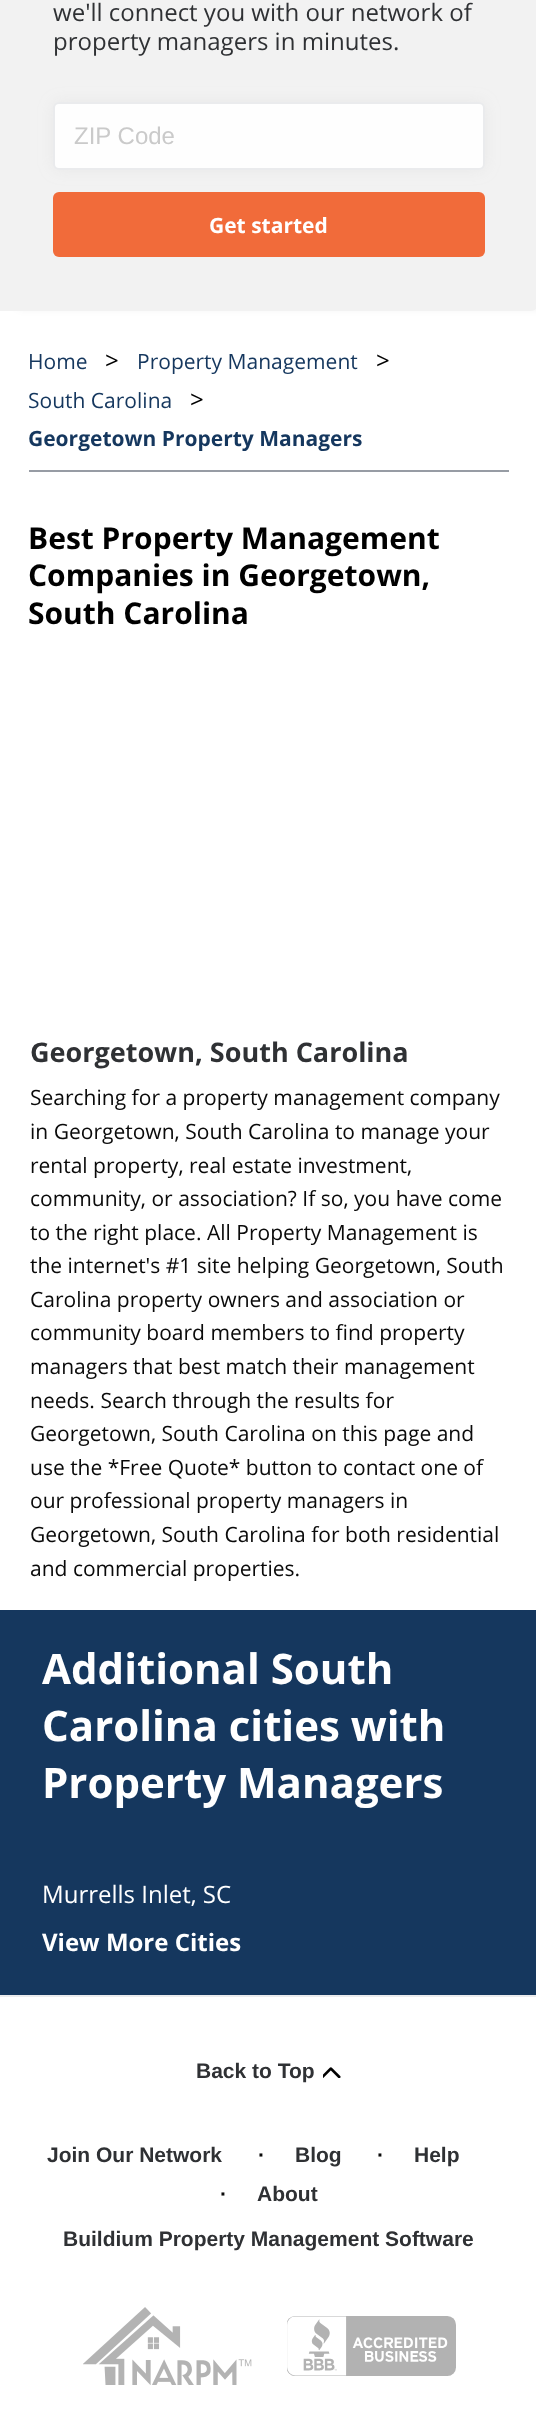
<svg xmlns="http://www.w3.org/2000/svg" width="536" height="2417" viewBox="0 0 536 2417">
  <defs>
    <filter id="blur1" x="-50%" y="-200%" width="200%" height="500%"><feGaussianBlur stdDeviation="4"/></filter>
    <filter id="blur2" x="-50%" y="-200%" width="200%" height="500%"><feGaussianBlur stdDeviation="7.5"/></filter>
  </defs>
  <rect width="100%" height="100%" fill="#ffffff"/>
  <rect x="18" y="-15" width="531" height="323" rx="3" fill="#000000" fill-opacity="0.08" filter="url(#blur1)"/>
  <path d="M0-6H531C534.5-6 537-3.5 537 0V305C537 308.5 534.5 311 531 311H0Z" fill="#f2f2f2"/>
  <text x="53" y="21" font-family="Open Sans" font-size="24" fill="#2f3134">we'll connect you with our network of</text>
  <text x="53" y="50" font-family="Open Sans" font-size="24" fill="#2f3134">property managers in minutes.</text>
  <rect x="53" y="102" width="432" height="68" rx="6" fill="#c0c0c0" fill-opacity="0.21" filter="url(#blur2)"/>
  <rect x="54" y="103" width="430" height="66" rx="5" fill="#fefefe" stroke="#eaebed" stroke-width="2"/>
  <text x="74" y="144" font-family="Liberation Sans" font-size="24" fill="#cacaca">ZIP Code</text>
  <rect x="53" y="192" width="432" height="65" rx="6" fill="#f16b3a"/>
  <text x="209" y="233" font-family="Open Sans" font-size="21" font-weight="bold" fill="#ffffff">Get started</text>
  <rect x="29" y="470" width="480" height="2" fill="#979ca4"/>
  <text x="28" y="369" font-family="Open Sans" font-size="21" fill="#15375e">Home</text>
  <text x="105" y="369" font-family="Open Sans" font-size="24" fill="#000000">&gt;</text>
  <text x="137" y="369" font-family="Open Sans" font-size="21" fill="#15375e">Property Management</text>
  <text x="376" y="369" font-family="Open Sans" font-size="24" fill="#000000">&gt;</text>
  <text x="28" y="408" font-family="Open Sans" font-size="21" fill="#15375e">South Carolina</text>
  <text x="190" y="408" font-family="Open Sans" font-size="24" fill="#000000">&gt;</text>
  <text x="28" y="446" font-family="Open Sans" font-size="21" font-weight="bold" fill="#15375e">Georgetown Property Managers</text>
  <text x="28" y="549" font-family="Open Sans" font-size="30" font-weight="bold" fill="#000000">Best Property Management</text>
  <text x="28" y="586" font-family="Open Sans" font-size="30" font-weight="bold" fill="#000000">Companies in Georgetown,</text>
  <text x="28" y="624" font-family="Open Sans" font-size="30" font-weight="bold" fill="#000000">South Carolina</text>
  <text x="30" y="1062" font-family="Open Sans" font-size="27" font-weight="bold" fill="#2f3134">Georgetown, South Carolina</text>
  <text x="30" y="1105" font-family="Open Sans" font-size="21" fill="#0a0a0a">Searching for a property management company</text>
  <text x="30" y="1139" font-family="Open Sans" font-size="21" fill="#0a0a0a">in Georgetown, South Carolina to manage your</text>
  <text x="30" y="1173" font-family="Open Sans" font-size="21" fill="#0a0a0a">rental property, real estate investment,</text>
  <text x="30" y="1206" font-family="Open Sans" font-size="21" fill="#0a0a0a">community, or association? If so, you have come</text>
  <text x="30" y="1240" font-family="Open Sans" font-size="21" fill="#0a0a0a">to the right place. All Property Management is</text>
  <text x="30" y="1273" font-family="Open Sans" font-size="21" fill="#0a0a0a">the internet's #1 site helping Georgetown, South</text>
  <text x="30" y="1307" font-family="Open Sans" font-size="21" fill="#0a0a0a">Carolina property owners and association or</text>
  <text x="30" y="1340" font-family="Open Sans" font-size="21" fill="#0a0a0a">community board members to find property</text>
  <text x="30" y="1374" font-family="Open Sans" font-size="21" fill="#0a0a0a">managers that best match their management</text>
  <text x="30" y="1408" font-family="Open Sans" font-size="21" fill="#0a0a0a">needs. Search through the results for</text>
  <text x="30" y="1441" font-family="Open Sans" font-size="21" fill="#0a0a0a">Georgetown, South Carolina on this page and</text>
  <text x="30" y="1475" font-family="Open Sans" font-size="21" fill="#0a0a0a">use the *Free Quote* button to contact one of</text>
  <text x="30" y="1508" font-family="Open Sans" font-size="21" fill="#0a0a0a">our professional property managers in</text>
  <text x="30" y="1542" font-family="Open Sans" font-size="21" fill="#0a0a0a">Georgetown, South Carolina for both residential</text>
  <text x="30" y="1576" font-family="Open Sans" font-size="21" fill="#0a0a0a">and commercial properties.</text>
  <rect x="0" y="1610" width="536" height="385" fill="#15375e"/>
  <text x="42" y="1684" font-family="Open Sans" font-size="42" font-weight="bold" fill="#ffffff">Additional South</text>
  <text x="42" y="1741" font-family="Open Sans" font-size="42" font-weight="bold" fill="#ffffff">Carolina cities with</text>
  <text x="42" y="1798" font-family="Open Sans" font-size="42" font-weight="bold" fill="#ffffff">Property Managers</text>
  <text x="42" y="1903" font-family="Open Sans" font-size="24" fill="#ffffff">Murrells Inlet, SC</text>
  <text x="42" y="1951" font-family="Open Sans" font-size="24" font-weight="bold" fill="#ffffff">View More Cities</text>
  <rect x="0" y="1995" width="536" height="2" fill="#eaebed"/>
  <text x="196" y="2078" font-family="Liberation Sans" font-size="21" font-weight="bold" fill="#2f3134">Back to Top</text>
  <image x="323" y="2067" width="18" height="11" href="img1.png"/>
  <text x="47" y="2162" font-family="Liberation Sans" font-size="21" font-weight="bold" fill="#2f3134">Join Our Network</text>
  <text x="258" y="2162" font-family="Liberation Sans" font-size="21" font-weight="bold" fill="#0a0a0a">·</text>
  <text x="295" y="2162" font-family="Liberation Sans" font-size="21" font-weight="bold" fill="#2f3134">Blog</text>
  <text x="377" y="2162" font-family="Liberation Sans" font-size="21" font-weight="bold" fill="#0a0a0a">·</text>
  <text x="414" y="2162" font-family="Liberation Sans" font-size="21" font-weight="bold" fill="#2f3134">Help</text>
  <text x="220" y="2201" font-family="Liberation Sans" font-size="21" font-weight="bold" fill="#0a0a0a">·</text>
  <text x="257" y="2201" font-family="Liberation Sans" font-size="21" font-weight="bold" fill="#2f3134">About</text>
  <text x="63" y="2246" font-family="Liberation Sans" font-size="21" font-weight="bold" fill="#2f3134">Buildium Property Management Software</text>
  <image x="83" y="2307" width="169" height="78" href="img2.png"/>
  <image x="287" y="2316" width="169" height="60" href="img3.png"/>
</svg>
